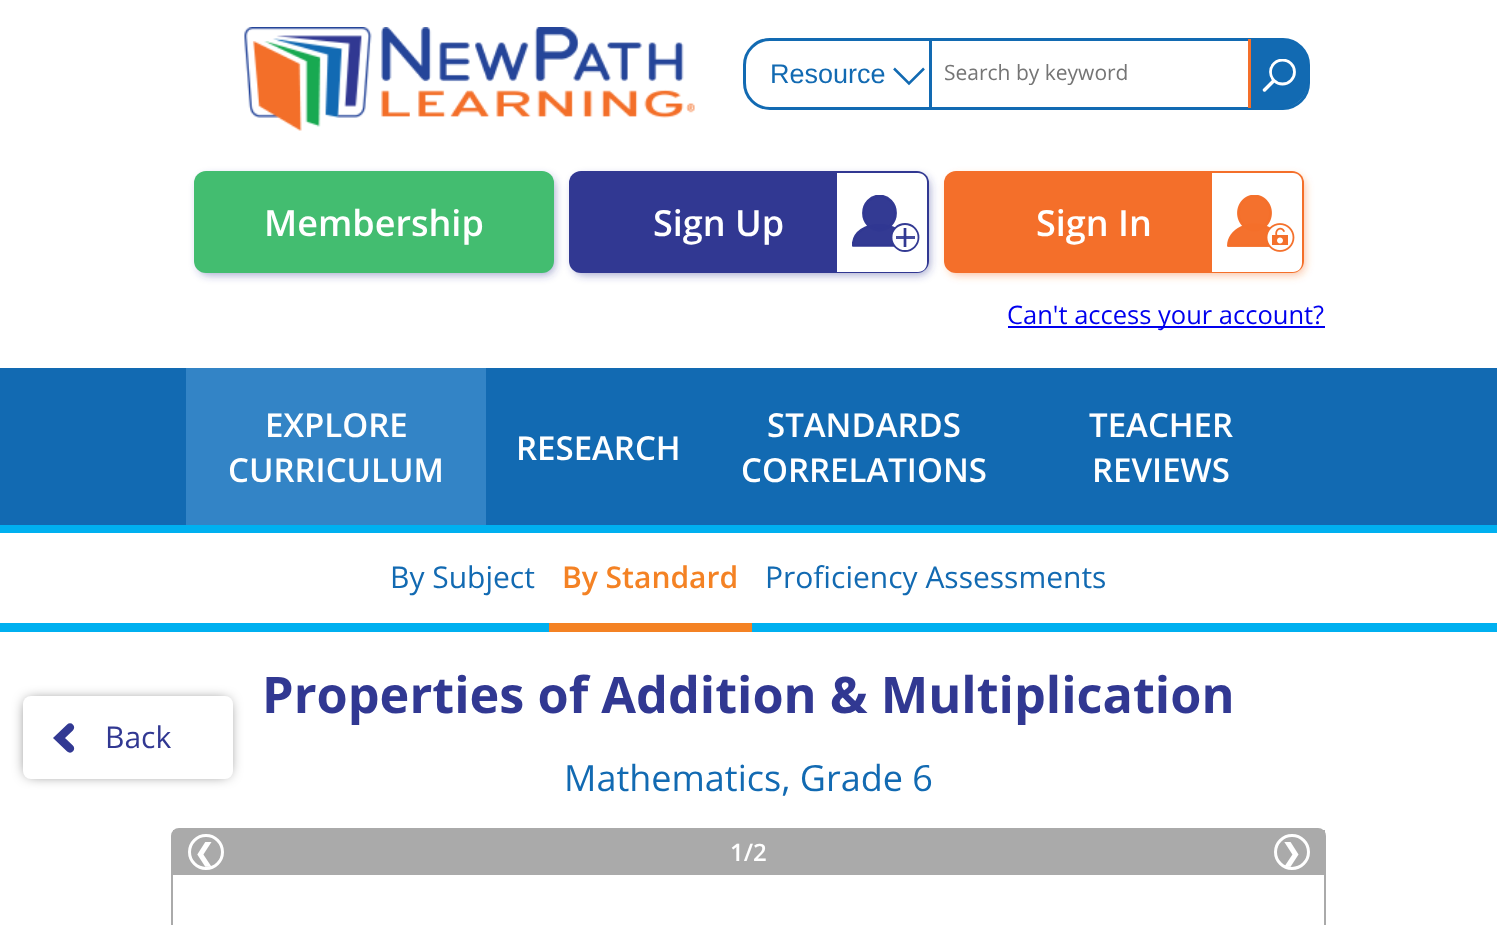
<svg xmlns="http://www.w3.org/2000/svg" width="1497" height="925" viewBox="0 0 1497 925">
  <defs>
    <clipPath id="clip1"><rect x="1263" y="59" width="33" height="33"/></clipPath>
    <filter id="blur1" x="-50%" y="-200%" width="200%" height="500%"><feGaussianBlur stdDeviation="4.5"/></filter>
    <clipPath id="clip2"><rect x="852" y="195" width="68" height="57"/></clipPath>
    <filter id="blur2" x="-50%" y="-200%" width="200%" height="500%"><feGaussianBlur stdDeviation="7"/></filter>
  </defs>
  <rect width="100%" height="100%" fill="#ffffff"/>
  <image x="244" y="27" width="451" height="104" href="img1.png"/>
  <rect x="744.5" y="39.5" width="564" height="69" rx="25.5" fill="none" stroke="#126ab2" stroke-width="3"/>
  <rect x="929" y="41" width="3" height="66" fill="#126ab2"/>
  <text x="770" y="83" font-family="Liberation Sans" font-size="27" fill="#126ab2">Resource</text>
  <path d="M894 68.5L909 83.5L924 68.5" fill="none" stroke="#126ab2" stroke-width="2.5"/>
  <text x="944" y="80" font-family="Open Sans" font-size="21" fill="#757575">Search by keyword</text>
  <path d="M1248 39H1281C1296 39 1308 51 1308 66V81C1308 96 1296 108 1281 108H1248Z" fill="#126ab2"/>
  <g clip-path="url(#clip1)">
    <circle cx="1282.5" cy="72" r="12" fill="none" stroke="#ffffff" stroke-width="2.8"/>
  </g>
  <path d="M1273.5 81L1264.5 90" fill="none" stroke="#ffffff" stroke-width="3.5" stroke-linecap="round"/>
  <rect x="1248" y="39" width="3" height="69" fill="#f46f2a"/>
  <rect x="198" y="176" width="357" height="99" rx="11" fill="#313892" fill-opacity="0.44" filter="url(#blur1)"/>
  <rect x="194" y="171" width="360" height="102" rx="12" fill="#43bd70"/>
  <text x="264" y="236" font-family="Open Sans" font-size="36" font-weight="600" fill="#ffffff">Membership</text>
  <rect x="573" y="176" width="357" height="99" rx="11" fill="#313892" fill-opacity="0.44" filter="url(#blur1)"/>
  <rect x="569" y="171" width="360" height="102" rx="12" fill="#313892"/>
  <text x="653" y="236" font-family="Open Sans" font-size="36" font-weight="600" fill="#ffffff">Sign Up</text>
  <path d="M837 173H918C923 173 927 177 927 182V263C927 268 923 272 918 272H837Z" fill="#ffffff"/>
  <path d="M905 246C905 218 853 218 853 246H879Z" fill="#333a93"/>
  <g clip-path="url(#clip2)">
    <path d="M905.5 245.5C905.5 218 853 218 853 245.5H879.5Z" fill="none" stroke="#313892" stroke-opacity="0.99" stroke-width="2.4" stroke-linecap="round" stroke-linejoin="round"/>
  </g>
  <ellipse cx="879.5" cy="213" rx="16" ry="17" fill="#313892" fill-opacity="0.99"/>
  <g clip-path="url(#clip2)">
    <ellipse cx="879.5" cy="213" rx="16" ry="17" fill="none" stroke="#313892" stroke-opacity="0.99" stroke-width="2.8"/>
  </g>
  <circle cx="905" cy="237.5" r="13.5" fill="#ffffff" fill-opacity="0.99" stroke="#313892" stroke-opacity="0.99" stroke-width="1.8"/>
  <path d="M905 247V228" fill="none" stroke="#313892" stroke-width="2.7"/>
  <rect x="896" y="236" width="19" height="3" fill="#313892" fill-opacity="0.9"/>
  <rect x="948" y="176" width="357" height="99" rx="11" fill="#f46f2a" fill-opacity="0.44" filter="url(#blur1)"/>
  <rect x="944" y="171" width="360" height="102" rx="12" fill="#f46f2a"/>
  <text x="1036" y="236" font-family="Open Sans" font-size="36" font-weight="600" fill="#ffffff">Sign In</text>
  <path d="M1212 173H1293C1298 173 1302 177 1302 182V263C1302 268 1298 272 1293 272H1212Z" fill="#ffffff"/>
  <image x="1227" y="195" width="68" height="57" href="img2.png"/>
  <rect x="1008" y="326" width="317" height="2" fill="#0000ee"/>
  <text x="1007" y="324" font-family="Open Sans" font-size="25.5" fill="#0000ee">Can't access your account?</text>
  <rect x="0" y="368" width="1497" height="157" fill="#126ab2"/>
  <rect x="186" y="368" width="300" height="157" fill="#3384c6"/>
  <text x="265" y="437" font-family="Open Sans" font-size="33" font-weight="600" fill="#ffffff">EXPLORE</text>
  <text x="228" y="482" font-family="Open Sans" font-size="33" font-weight="600" fill="#ffffff">CURRICULUM</text>
  <text x="516" y="460" font-family="Open Sans" font-size="33" font-weight="600" fill="#ffffff">RESEARCH</text>
  <text x="767" y="437" font-family="Open Sans" font-size="33" font-weight="600" fill="#ffffff">STANDARDS</text>
  <text x="741" y="482" font-family="Open Sans" font-size="33" font-weight="600" fill="#ffffff">CORRELATIONS</text>
  <text x="1089" y="437" font-family="Open Sans" font-size="33" font-weight="600" fill="#ffffff">TEACHER</text>
  <text x="1092" y="482" font-family="Open Sans" font-size="33" font-weight="600" fill="#ffffff">REVIEWS</text>
  <rect x="0" y="525" width="1497" height="8" fill="#00b0f0"/>
  <rect x="0" y="623" width="1497" height="9" fill="#00b0f0"/>
  <text x="390" y="588" font-family="Open Sans" font-size="30" fill="#126ab2">By Subject</text>
  <rect x="549" y="623" width="203" height="9" fill="#f48224"/>
  <text x="562" y="588" font-family="Open Sans" font-size="30" font-weight="600" fill="#f48224">By Standard</text>
  <text x="765" y="588" font-family="Open Sans" font-size="30" fill="#126ab2">Proficiency Assessments</text>
  <text x="262" y="713" font-family="Open Sans" font-size="50.4" font-weight="bold" fill="#313892">Properties of Addition &amp; Multiplication</text>
  <rect x="27" y="701" width="201" height="73" rx="3" fill="#000000" fill-opacity="0.7" filter="url(#blur2)"/>
  <rect x="23" y="696" width="210" height="83" rx="8" fill="#ffffff"/>
  <path d="M70 727.5L59 738L70 748.5" fill="none" stroke="#323993" stroke-width="8.3" stroke-linecap="round"/>
  <text x="105" y="748" font-family="Open Sans" font-size="30" fill="#313892">Back</text>
  <text x="564" y="791" font-family="Open Sans" font-size="36" fill="#126ab2">Mathematics, Grade 6</text>
  <rect x="172" y="829" width="1153" height="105" rx="7" fill="none" stroke="#aaaaaa" stroke-width="2"/>
  <rect x="173" y="830" width="1152" height="45" fill="#aaaaaa"/>
  <circle cx="206" cy="852" r="16.5" fill="none" stroke="#ffffff" stroke-width="3"/>
  <text x="194" y="861" font-family="DejaVu Sans" font-size="24" font-weight="bold" fill="#ffffff">❮</text>
  <text x="730" y="861" font-family="Open Sans" font-size="24" font-weight="600" fill="#ffffff">1/2</text>
  <circle cx="1292" cy="852" r="16.5" fill="none" stroke="#ffffff" stroke-width="3"/>
  <text x="1281" y="861" font-family="DejaVu Sans" font-size="24" font-weight="bold" fill="#ffffff">❯</text>
</svg>
